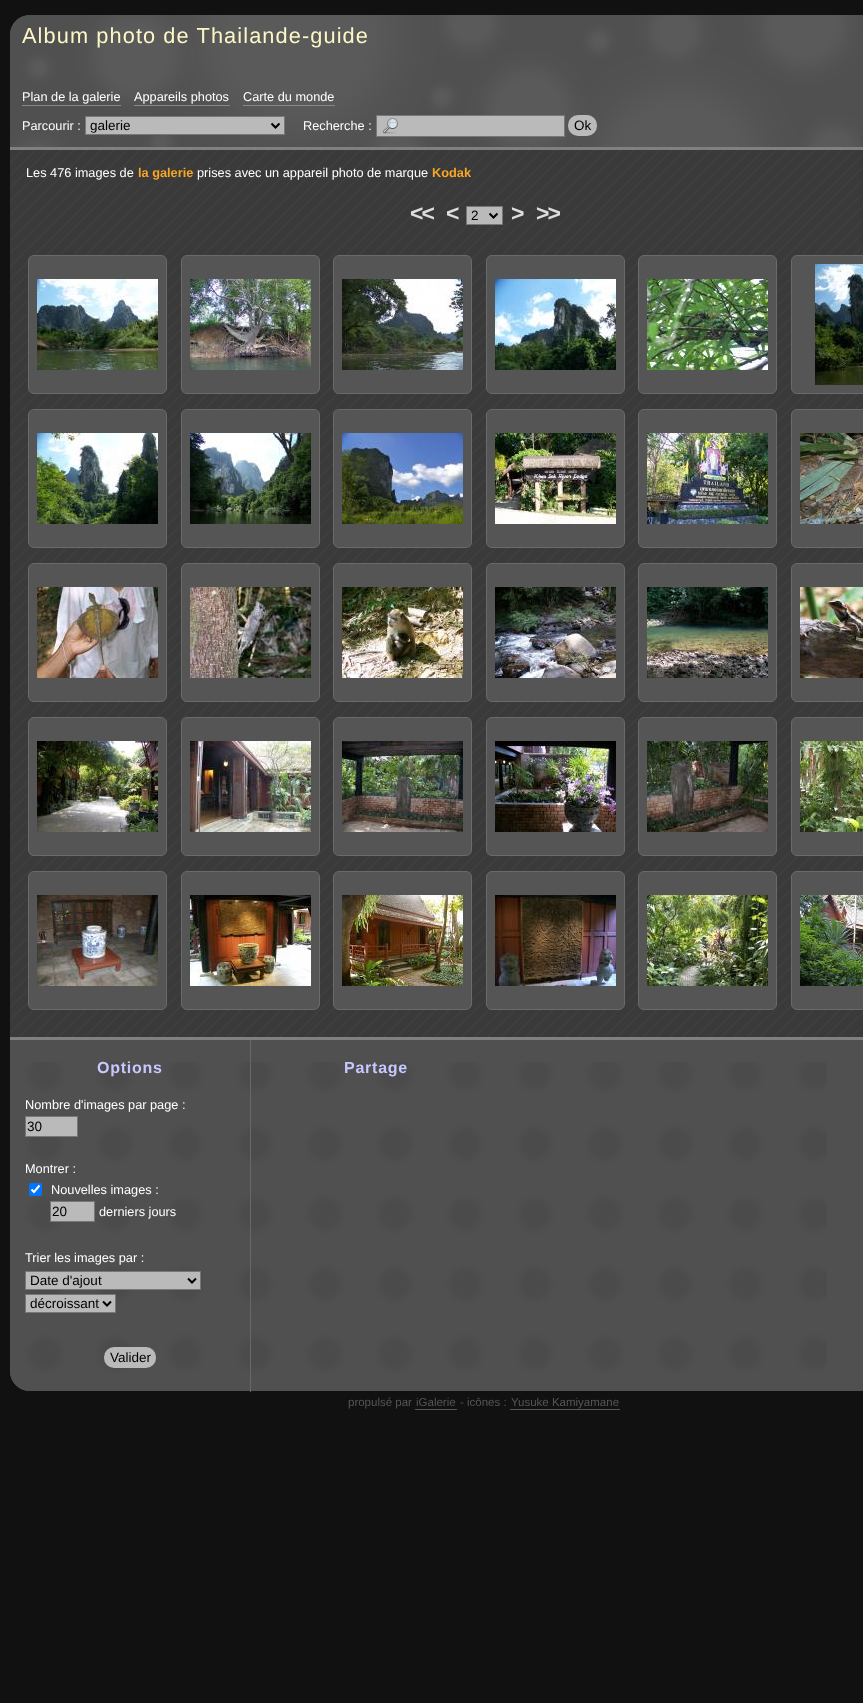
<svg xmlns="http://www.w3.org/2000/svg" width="863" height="1703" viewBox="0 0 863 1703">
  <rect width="100%" height="100%" fill="#111111"/>
  <path d="M30 15H863C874 15 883 24 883 35V150H10V35C10 24 19 15 30 15Z" fill="#505050"/>
  <image x="10" y="15" width="851" height="132" href="img1.png"/>
  <rect x="10" y="147" width="853" height="3" fill="#808080"/>
  <text x="22" y="43" font-family="Liberation Sans" font-size="21.75" letter-spacing="1.1" fill="#fdf7c7">Album photo de Thailande-guide</text>
  <text x="22" y="101" font-family="Liberation Sans" font-size="12.75" fill="#ffffff">Plan de la galerie</text>
  <rect x="22" y="105" width="99" height="1" fill="#888888"/>
  <text x="134" y="101" font-family="Liberation Sans" font-size="12.75" fill="#ffffff">Appareils photos</text>
  <rect x="134" y="105" width="96" height="1" fill="#888888"/>
  <text x="243" y="101" font-family="Liberation Sans" font-size="12.75" fill="#ffffff">Carte du monde</text>
  <rect x="243" y="105" width="92" height="1" fill="#888888"/>
  <text x="22" y="130" font-family="Liberation Sans" font-size="12.75" fill="#ffffff">Parcourir :</text>
  <rect x="85.5" y="116.5" width="199" height="18" fill="#bababa" stroke="#777777"/>
  <path d="M271.5 123.5L275.5 127.5L279.5 123.5" fill="none" stroke="#000000" stroke-width="2"/>
  <text x="90" y="130" font-family="Liberation Sans" font-size="13.5" fill="#000000">galerie</text>
  <text x="303" y="130" font-family="Liberation Sans" font-size="12.75" fill="#ffffff">Recherche :</text>
  <rect x="377" y="116" width="187" height="20" fill="#bababa"/>
  <image x="382" y="118" width="16" height="16" href="img2.png"/>
  <rect x="376.5" y="115.5" width="188" height="21" fill="none" stroke="#777777"/>
  <rect x="568" y="115" width="29" height="21" rx="10" fill="#bababa"/>
  <text x="574" y="130" font-family="Liberation Sans" font-size="13.5" fill="#000000">Ok</text>
  <path d="M10 150H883V1371C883 1382 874 1391 863 1391H30C19 1391 10 1382 10 1371Z" fill="#3a3a3a"/>
  <image x="10" y="150" width="853" height="1241" href="img3.png"/>
  <text x="26" y="177" font-family="Liberation Sans" font-size="12.75" fill="#ffffff">Les 476 images de</text>
  <text x="138" y="177" font-family="Liberation Sans" font-size="12.75" font-weight="bold" fill="#f8a626">la galerie</text>
  <text x="197" y="177" font-family="Liberation Sans" font-size="12.75" fill="#ffffff">prises avec un appareil photo de marque</text>
  <text x="432" y="177" font-family="Liberation Sans" font-size="12.75" font-weight="bold" fill="#f8a626">Kodak</text>
  <text x="410" y="221" font-family="Liberation Sans" font-size="23" font-weight="bold" letter-spacing="-2" fill="#dddddd">&lt;&lt;</text>
  <text x="446" y="221" font-family="Liberation Sans" font-size="23" font-weight="bold" letter-spacing="-2" fill="#dddddd">&lt;</text>
  <rect x="466.5" y="206.5" width="36" height="18" fill="#bababa" stroke="#777777"/>
  <path d="M489.5 213.5L493.5 217.5L497.5 213.5" fill="none" stroke="#000000" stroke-width="2"/>
  <text x="471" y="220" font-family="Liberation Sans" font-size="13.5" fill="#000000">2</text>
  <text x="511" y="221" font-family="Liberation Sans" font-size="23" font-weight="bold" letter-spacing="-2" fill="#dddddd">&gt;</text>
  <text x="536" y="221" font-family="Liberation Sans" font-size="23" font-weight="bold" letter-spacing="-2" fill="#dddddd">&gt;&gt;</text>
  <rect x="28.5" y="255.5" width="138" height="138" rx="5.5" fill="#555555" stroke="#6a6a6a"/>
  <image x="37" y="279" width="121" height="91" href="img4.png"/>
  <rect x="181.5" y="255.5" width="138" height="138" rx="5.5" fill="#555555" stroke="#6a6a6a"/>
  <image x="190" y="279" width="121" height="91" href="img5.png"/>
  <rect x="333.5" y="255.5" width="138" height="138" rx="5.5" fill="#555555" stroke="#6a6a6a"/>
  <image x="342" y="279" width="121" height="91" href="img6.png"/>
  <rect x="486.5" y="255.5" width="138" height="138" rx="5.5" fill="#555555" stroke="#6a6a6a"/>
  <image x="495" y="279" width="121" height="91" href="img7.png"/>
  <rect x="638.5" y="255.5" width="138" height="138" rx="5.5" fill="#555555" stroke="#6a6a6a"/>
  <image x="647" y="279" width="121" height="91" href="img8.png"/>
  <rect x="791.5" y="255.5" width="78" height="138" rx="5.5" fill="#555555" stroke="#6a6a6a"/>
  <image x="815" y="264" width="48" height="121" href="img9.png"/>
  <rect x="28.5" y="409.5" width="138" height="138" rx="5.5" fill="#555555" stroke="#6a6a6a"/>
  <image x="37" y="433" width="121" height="91" href="img10.png"/>
  <rect x="181.5" y="409.5" width="138" height="138" rx="5.5" fill="#555555" stroke="#6a6a6a"/>
  <image x="190" y="433" width="121" height="91" href="img11.png"/>
  <rect x="333.5" y="409.5" width="138" height="138" rx="5.5" fill="#555555" stroke="#6a6a6a"/>
  <image x="342" y="433" width="121" height="91" href="img12.png"/>
  <rect x="486.5" y="409.5" width="138" height="138" rx="5.5" fill="#555555" stroke="#6a6a6a"/>
  <image x="495" y="433" width="121" height="91" href="img13.png"/>
  <rect x="638.5" y="409.5" width="138" height="138" rx="5.5" fill="#555555" stroke="#6a6a6a"/>
  <image x="647" y="433" width="121" height="91" href="img14.png"/>
  <rect x="791.5" y="409.5" width="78" height="138" rx="5.5" fill="#555555" stroke="#6a6a6a"/>
  <image x="800" y="433" width="63" height="91" href="img15.png"/>
  <rect x="28.5" y="563.5" width="138" height="138" rx="5.5" fill="#555555" stroke="#6a6a6a"/>
  <image x="37" y="587" width="121" height="91" href="img16.png"/>
  <rect x="181.5" y="563.5" width="138" height="138" rx="5.5" fill="#555555" stroke="#6a6a6a"/>
  <image x="190" y="587" width="121" height="91" href="img17.png"/>
  <rect x="333.5" y="563.5" width="138" height="138" rx="5.5" fill="#555555" stroke="#6a6a6a"/>
  <image x="342" y="587" width="121" height="91" href="img18.png"/>
  <rect x="486.5" y="563.5" width="138" height="138" rx="5.5" fill="#555555" stroke="#6a6a6a"/>
  <image x="495" y="587" width="121" height="91" href="img19.png"/>
  <rect x="638.5" y="563.5" width="138" height="138" rx="5.5" fill="#555555" stroke="#6a6a6a"/>
  <image x="647" y="587" width="121" height="91" href="img20.png"/>
  <rect x="791.5" y="563.5" width="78" height="138" rx="5.5" fill="#555555" stroke="#6a6a6a"/>
  <image x="800" y="587" width="63" height="91" href="img21.png"/>
  <rect x="28.5" y="717.5" width="138" height="138" rx="5.5" fill="#555555" stroke="#6a6a6a"/>
  <image x="37" y="741" width="121" height="91" href="img22.png"/>
  <rect x="181.5" y="717.5" width="138" height="138" rx="5.5" fill="#555555" stroke="#6a6a6a"/>
  <image x="190" y="741" width="121" height="91" href="img23.png"/>
  <rect x="333.5" y="717.5" width="138" height="138" rx="5.5" fill="#555555" stroke="#6a6a6a"/>
  <image x="342" y="741" width="121" height="91" href="img24.png"/>
  <rect x="486.5" y="717.5" width="138" height="138" rx="5.5" fill="#555555" stroke="#6a6a6a"/>
  <image x="495" y="741" width="121" height="91" href="img25.png"/>
  <rect x="638.5" y="717.5" width="138" height="138" rx="5.5" fill="#555555" stroke="#6a6a6a"/>
  <image x="647" y="741" width="121" height="91" href="img26.png"/>
  <rect x="791.5" y="717.5" width="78" height="138" rx="5.5" fill="#555555" stroke="#6a6a6a"/>
  <image x="800" y="741" width="63" height="91" href="img27.png"/>
  <rect x="28.5" y="871.5" width="138" height="138" rx="5.5" fill="#555555" stroke="#6a6a6a"/>
  <image x="37" y="895" width="121" height="91" href="img28.png"/>
  <rect x="181.5" y="871.5" width="138" height="138" rx="5.5" fill="#555555" stroke="#6a6a6a"/>
  <image x="190" y="895" width="121" height="91" href="img29.png"/>
  <rect x="333.5" y="871.5" width="138" height="138" rx="5.5" fill="#555555" stroke="#6a6a6a"/>
  <image x="342" y="895" width="121" height="91" href="img30.png"/>
  <rect x="486.5" y="871.5" width="138" height="138" rx="5.5" fill="#555555" stroke="#6a6a6a"/>
  <image x="495" y="895" width="121" height="91" href="img31.png"/>
  <rect x="638.5" y="871.5" width="138" height="138" rx="5.5" fill="#555555" stroke="#6a6a6a"/>
  <image x="647" y="895" width="121" height="91" href="img32.png"/>
  <rect x="791.5" y="871.5" width="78" height="138" rx="5.5" fill="#555555" stroke="#6a6a6a"/>
  <image x="800" y="895" width="63" height="91" href="img33.png"/>
  <path d="M10 1037H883V1371C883 1382 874 1391 863 1391H30C19 1391 10 1382 10 1371Z" fill="#505050"/>
  <image x="10" y="1062" width="817" height="329" href="img34.png"/>
  <rect x="10" y="1037" width="853" height="3" fill="#808080"/>
  <rect x="250" y="1040" width="1" height="352" fill="#686868"/>
  <text x="97" y="1073" font-family="Liberation Sans" font-size="16" font-weight="bold" letter-spacing="0.75" fill="#c7c8ff">Options</text>
  <text x="25" y="1109" font-family="Liberation Sans" font-size="12.75" fill="#ffffff">Nombre d'images par page :</text>
  <rect x="25.5" y="1116.5" width="52" height="20" fill="#bababa" stroke="#777777"/>
  <text x="27" y="1131" font-family="Liberation Sans" font-size="13.5" fill="#000000">30</text>
  <text x="25" y="1173" font-family="Liberation Sans" font-size="12.75" fill="#ffffff">Montrer :</text>
  <rect x="29" y="1183" width="13" height="13" rx="2" fill="#0075ff"/>
  <path d="M31.5 1189.5L34 1192L39.5 1185.5" fill="none" stroke="#ffffff" stroke-width="2.1"/>
  <text x="51" y="1194" font-family="Liberation Sans" font-size="12.75" fill="#ffffff">Nouvelles images :</text>
  <rect x="50.5" y="1201.5" width="44" height="20" fill="#bababa" stroke="#777777"/>
  <text x="52" y="1216" font-family="Liberation Sans" font-size="13.5" fill="#000000">20</text>
  <text x="99" y="1216" font-family="Liberation Sans" font-size="12.75" fill="#ffffff">derniers jours</text>
  <text x="25" y="1262" font-family="Liberation Sans" font-size="12.75" fill="#ffffff">Trier les images par :</text>
  <rect x="25.5" y="1271.5" width="175" height="18" fill="#bababa" stroke="#777777"/>
  <path d="M188 1278.5L192 1282.5L196 1278.5" fill="none" stroke="#000000" stroke-width="2"/>
  <text x="30" y="1285" font-family="Liberation Sans" font-size="13.5" fill="#000000">Date d'ajout</text>
  <rect x="25.5" y="1294.5" width="90" height="18" fill="#bababa" stroke="#777777"/>
  <path d="M103 1301.5L107 1305.5L111 1301.5" fill="none" stroke="#000000" stroke-width="2"/>
  <text x="30" y="1308" font-family="Liberation Sans" font-size="13.5" fill="#000000">décroissant</text>
  <rect x="104" y="1347" width="52" height="21" rx="10" fill="#bababa"/>
  <text x="110" y="1362" font-family="Liberation Sans" font-size="13.5" fill="#000000">Valider</text>
  <text x="344" y="1073" font-family="Liberation Sans" font-size="16" font-weight="bold" letter-spacing="0.75" fill="#c7c8ff">Partage</text>
  <text x="348" y="1406" font-family="Liberation Sans" font-size="11.5" fill="#555555">propulsé par</text>
  <text x="416" y="1406" font-family="Liberation Sans" font-size="11.5" fill="#555555">iGalerie</text>
  <rect x="415" y="1409" width="42" height="1" fill="#555555"/>
  <text x="460" y="1406" font-family="Liberation Sans" font-size="11.5" fill="#555555">- icônes :</text>
  <text x="511" y="1406" font-family="Liberation Sans" font-size="11.5" fill="#555555">Yusuke Kamiyamane</text>
  <rect x="510" y="1409" width="110" height="1" fill="#555555"/>
</svg>
